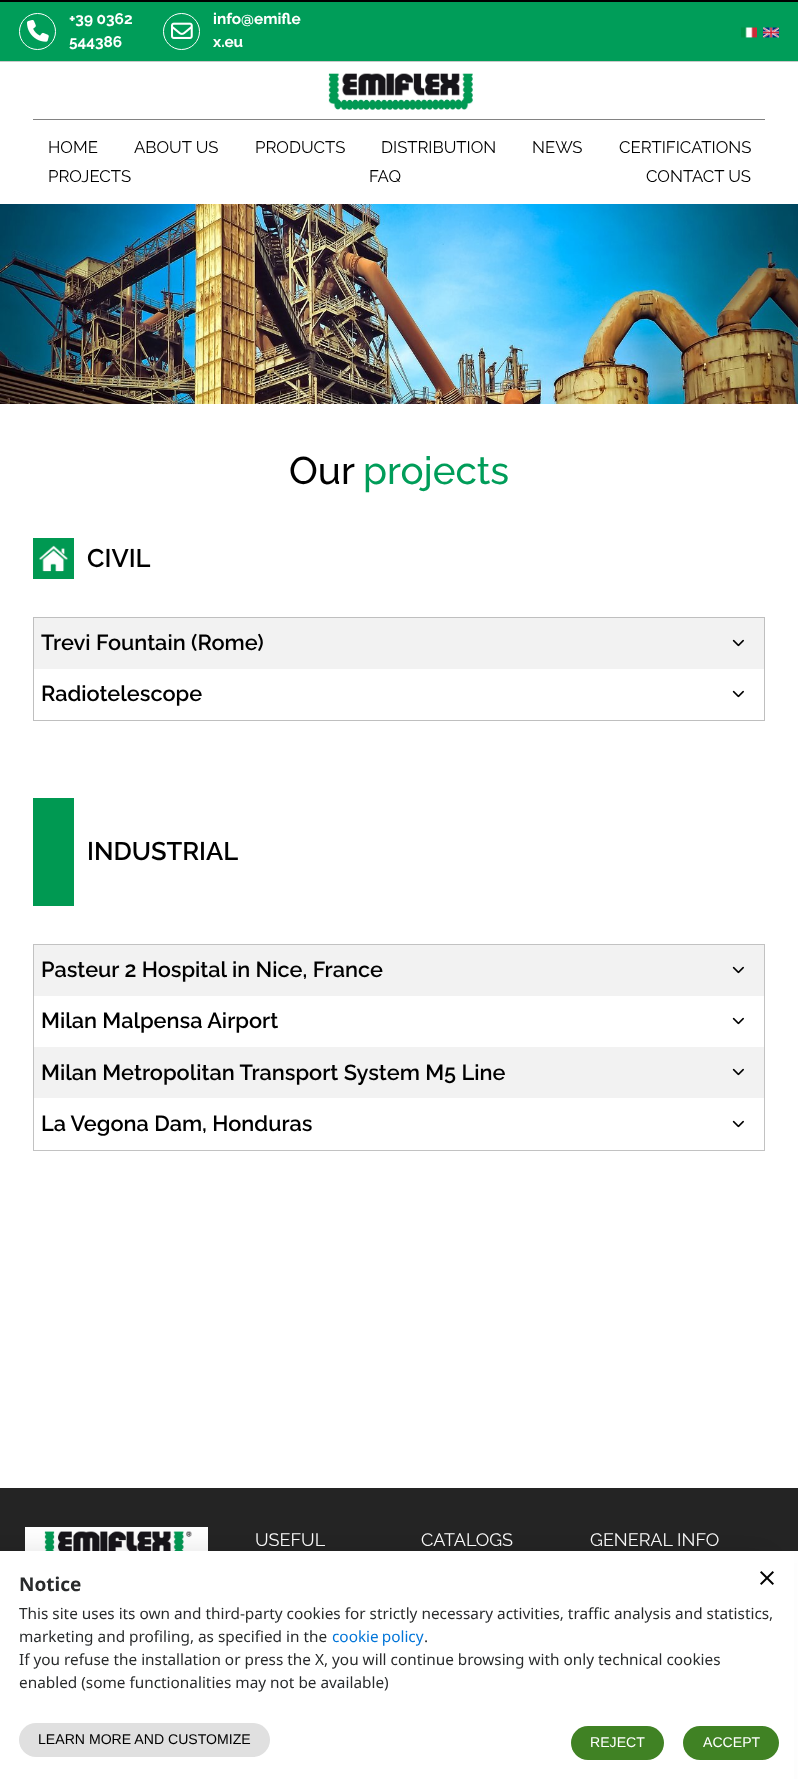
<svg xmlns="http://www.w3.org/2000/svg" width="798" height="1779" viewBox="0 0 798 1779">
  <defs>
    <filter id="blur1" x="-50%" y="-200%" width="200%" height="500%"><feGaussianBlur stdDeviation="15"/></filter>
  </defs>
  <rect width="100%" height="100%" fill="#ffffff"/>
  <rect x="0" y="2" width="798" height="59" fill="#009d59"/>
  <rect x="0" y="0" width="798" height="2" fill="#000000"/>
  <rect x="0" y="61" width="798" height="1" fill="#cacaca"/>
  <circle cx="37.5" cy="31.5" r="18" fill="none" stroke="#ffffff"/>
  <image x="27" y="20" width="22" height="22" href="img1.png"/>
  <text x="69" y="24" font-family="Raleway" font-size="15.35" font-weight="bold" fill="#ffffff">+39 0362</text>
  <text x="69" y="47" font-family="Raleway" font-size="15.35" font-weight="bold" fill="#ffffff">544386</text>
  <circle cx="181.5" cy="31.5" r="18" fill="none" stroke="#ffffff"/>
  <image x="171" y="22" width="22" height="17" href="img2.png"/>
  <text x="213" y="24" font-family="Raleway" font-size="15.35" font-weight="bold" fill="#ffffff">info@emifle</text>
  <text x="213" y="47" font-family="Raleway" font-size="15.35" font-weight="bold" fill="#ffffff">x.eu</text>
  <image x="741" y="27" width="16" height="11" href="img3.png"/>
  <image x="763" y="27" width="16" height="11" href="img4.png"/>
  <image x="328" y="73" width="145" height="37" href="img5.png"/>
  <rect x="33" y="119" width="732" height="1" fill="#828282"/>
  <text x="48" y="153" font-family="Raleway" font-size="16.75" fill="#000000">HOME</text>
  <text x="134" y="153" font-family="Raleway" font-size="16.75" fill="#000000">ABOUT US</text>
  <text x="255" y="153" font-family="Raleway" font-size="16.75" fill="#000000">PRODUCTS</text>
  <text x="381" y="153" font-family="Raleway" font-size="16.75" fill="#000000">DISTRIBUTION</text>
  <text x="532" y="153" font-family="Raleway" font-size="16.75" fill="#000000">NEWS</text>
  <text x="619" y="153" font-family="Raleway" font-size="16.75" fill="#000000">CERTIFICATIONS</text>
  <text x="48" y="182" font-family="Raleway" font-size="16.75" fill="#000000">PROJECTS</text>
  <text x="369" y="182" font-family="Raleway" font-size="16.75" fill="#000000">FAQ</text>
  <text x="646" y="182" font-family="Raleway" font-size="16.75" fill="#000000">CONTACT US</text>
  <image x="0" y="204" width="798" height="200" href="img6.png"/>
  <text x="289" y="484" font-family="Raleway" font-size="38.5" font-weight="500" fill="#000000">Our</text>
  <text x="363" y="484" font-family="Raleway" font-size="38.5" font-weight="500" fill="#009d59">projects</text>
  <rect x="33" y="538" width="41" height="41" fill="#009952"/>
  <image x="39" y="545" width="29" height="27" href="img7.png"/>
  <text x="87" y="567" font-family="Raleway" font-size="25.5" font-weight="600" fill="#000000">CIVIL</text>
  <rect x="33.5" y="617.5" width="731" height="103" fill="none" stroke="#bfbfbf"/>
  <rect x="34" y="618" width="730" height="51" fill="#f2f2f2"/>
  <text x="41" y="650" font-family="Raleway" font-size="21.75" font-weight="600" fill="#000000">Trevi Fountain (Rome)</text>
  <image x="732" y="639" width="12" height="8" href="img8.png"/>
  <text x="41" y="701" font-family="Raleway" font-size="21.75" font-weight="600" fill="#000000">Radiotelescope</text>
  <image x="732" y="690" width="12" height="8" href="img9.png"/>
  <rect x="33" y="798" width="41" height="108" fill="#009952"/>
  <text x="87" y="860" font-family="Raleway" font-size="25.5" font-weight="600" fill="#000000">INDUSTRIAL</text>
  <rect x="33.5" y="944.5" width="731" height="206" fill="none" stroke="#c2c2c2"/>
  <rect x="34" y="945" width="730" height="51" fill="#f2f2f2"/>
  <text x="41" y="977" font-family="Raleway" font-size="21.75" font-weight="600" fill="#000000">Pasteur 2 Hospital in Nice, France</text>
  <image x="732" y="966" width="12" height="8" href="img8.png"/>
  <text x="41" y="1028" font-family="Raleway" font-size="21.75" font-weight="600" fill="#000000">Milan Malpensa Airport</text>
  <image x="732" y="1017" width="12" height="8" href="img9.png"/>
  <rect x="34" y="1047" width="730" height="51" fill="#f2f2f2"/>
  <text x="41" y="1080" font-family="Raleway" font-size="21.75" font-weight="600" fill="#000000">Milan Metropolitan Transport System M5 Line</text>
  <image x="732" y="1068" width="12" height="8" href="img8.png"/>
  <text x="41" y="1131" font-family="Raleway" font-size="21.75" font-weight="600" fill="#000000">La Vegona Dam, Honduras</text>
  <image x="732" y="1120" width="12" height="8" href="img9.png"/>
  <rect x="0" y="1488" width="798" height="63" fill="#242424"/>
  <rect x="25" y="1527" width="183" height="24" fill="#ffffff"/>
  <image x="44" y="1531" width="148" height="20" href="img10.png"/>
  <text x="255" y="1546" font-family="Raleway" font-size="18" fill="#ffffff">USEFUL</text>
  <text x="421" y="1546" font-family="Raleway" font-size="18" fill="#ffffff">CATALOGS</text>
  <text x="590" y="1546" font-family="Raleway" font-size="18" fill="#ffffff">GENERAL INFO</text>
  <rect x="-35" y="1553" width="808" height="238" fill="#000000" fill-opacity="0.12" filter="url(#blur1)"/>
  <rect x="0" y="1551" width="794" height="228" fill="#ffffff"/>
  <text x="19" y="1591" font-family="Noto Sans" font-size="19" font-weight="bold" fill="#292b2c">Notice</text>
  <image x="760" y="1571" width="14" height="14" href="img11.png"/>
  <text x="19" y="1619" font-family="Noto Sans" font-size="15.35" fill="#292b2c">This site uses its own and third-party cookies for strictly necessary activities, traffic analysis and statistics,</text>
  <text x="19" y="1642" font-family="Noto Sans" font-size="15.35" fill="#292b2c">marketing and profiling, as specified in the</text>
  <text x="332" y="1642" word-spacing="-1" font-family="Noto Sans" font-size="15.35" fill="#0275d8">cookie policy</text>
  <text x="424" y="1642" font-family="Noto Sans" font-size="15.35" fill="#292b2c">.</text>
  <text x="19" y="1665" font-family="Noto Sans" font-size="15.35" fill="#292b2c">If you refuse the installation or press the X, you will continue browsing with only technical cookies</text>
  <text x="19" y="1688" font-family="Noto Sans" font-size="15.35" fill="#292b2c">enabled (some functionalities may not be available)</text>
  <rect x="19" y="1723" width="251" height="34" rx="17" fill="#e0e0e0"/>
  <text x="38" y="1744" font-family="Liberation Sans" font-size="14.1" fill="#000000">LEARN MORE AND CUSTOMIZE</text>
  <rect x="571" y="1726" width="93" height="34" rx="17" fill="#408224"/>
  <text x="590" y="1747" font-family="Liberation Sans" font-size="14.1" fill="#ffffff">REJECT</text>
  <rect x="683" y="1726" width="96" height="34" rx="17" fill="#408224"/>
  <text x="703" y="1747" font-family="Liberation Sans" font-size="14.1" fill="#ffffff">ACCEPT</text>
</svg>
